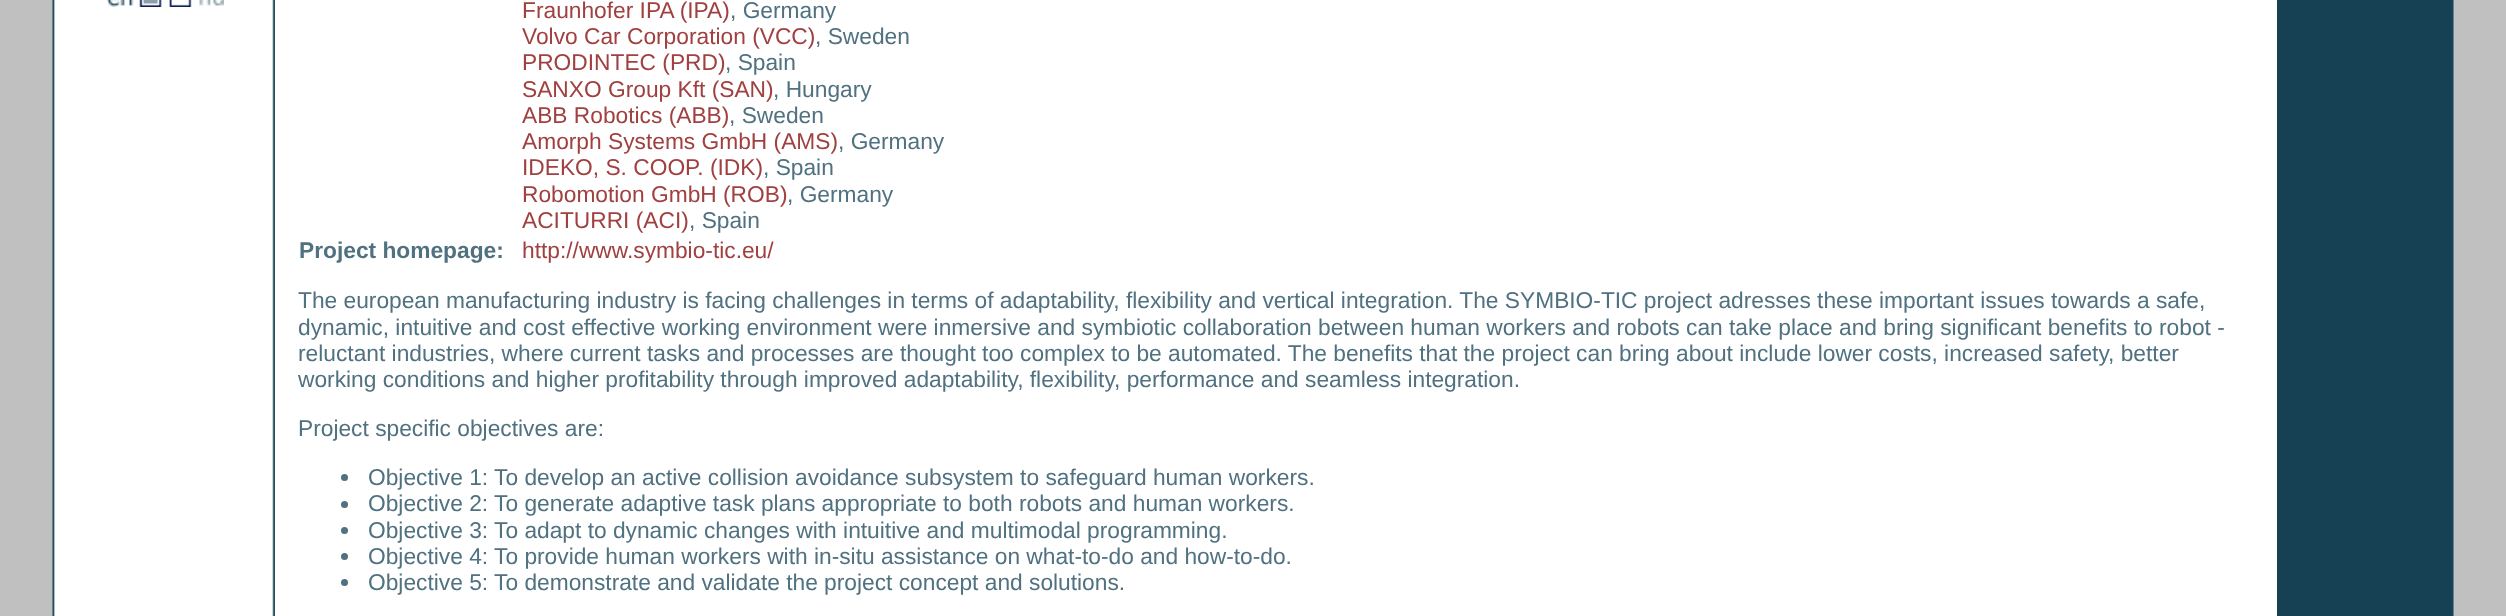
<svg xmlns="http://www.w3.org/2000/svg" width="2506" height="616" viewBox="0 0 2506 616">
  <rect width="100%" height="100%" fill="#ffffff"/>
  <image x="274" y="0" width="1" height="616" href="img1.png"/>
  <image x="0" y="0" width="275" height="616" href="img2.png"/>
  <image x="2277" y="0" width="229" height="616" href="img3.png"/>
  <image x="106" y="0" width="118" height="7" href="img4.png"/>
  <text x="522" y="18" font-family="Liberation Sans" font-size="22.75" fill="#a14040">Fraunhofer IPA (IPA)</text>
  <text x="730" y="18" font-family="Liberation Sans" font-size="22.75" fill="#507180">, Germany</text>
  <text x="522" y="44" font-family="Liberation Sans" font-size="22.75" fill="#a14040">Volvo Car Corporation (VCC)</text>
  <text x="815" y="44" font-family="Liberation Sans" font-size="22.75" fill="#507180">, Sweden</text>
  <text x="522" y="70" font-family="Liberation Sans" font-size="22.75" fill="#a14040">PRODINTEC (PRD)</text>
  <text x="725" y="70" font-family="Liberation Sans" font-size="22.75" fill="#507180">, Spain</text>
  <text x="522" y="97" font-family="Liberation Sans" font-size="22.75" fill="#a14040">SANXO Group Kft (SAN)</text>
  <text x="773" y="97" font-family="Liberation Sans" font-size="22.75" fill="#507180">, Hungary</text>
  <text x="522" y="123" font-family="Liberation Sans" font-size="22.75" fill="#a14040">ABB Robotics (ABB)</text>
  <text x="729" y="123" font-family="Liberation Sans" font-size="22.75" fill="#507180">, Sweden</text>
  <text x="522" y="149" font-family="Liberation Sans" font-size="22.75" fill="#a14040">Amorph Systems GmbH (AMS)</text>
  <text x="838" y="149" font-family="Liberation Sans" font-size="22.75" fill="#507180">, Germany</text>
  <text x="522" y="175" font-family="Liberation Sans" font-size="22.75" fill="#a14040">IDEKO, S. COOP. (IDK)</text>
  <text x="763" y="175" font-family="Liberation Sans" font-size="22.75" fill="#507180">, Spain</text>
  <text x="522" y="202" font-family="Liberation Sans" font-size="22.75" fill="#a14040">Robomotion GmbH (ROB)</text>
  <text x="787" y="202" font-family="Liberation Sans" font-size="22.75" fill="#507180">, Germany</text>
  <text x="522" y="228" font-family="Liberation Sans" font-size="22.75" fill="#a14040">ACITURRI (ACI)</text>
  <text x="689" y="228" font-family="Liberation Sans" font-size="22.75" fill="#507180">, Spain</text>
  <text x="299" y="258" font-family="Liberation Sans" font-size="22.75" font-weight="bold" fill="#507180">Project homepage:</text>
  <text x="522" y="258" font-family="Liberation Sans" font-size="22.75" fill="#a14040">http://www.symbio-tic.eu/</text>
  <text x="298" y="308" font-family="Liberation Sans" font-size="22.75" fill="#507180">The european manufacturing industry is facing challenges in terms of adaptability, flexibility and vertical integration. The SYMBIO-TIC project adresses these important issues towards a safe,</text>
  <text x="298" y="335" font-family="Liberation Sans" font-size="22.75" fill="#507180">dynamic, intuitive and cost effective working environment were inmersive and symbiotic collaboration between human workers and robots can take place and bring significant benefits to robot -</text>
  <text x="298" y="361" font-family="Liberation Sans" font-size="22.75" fill="#507180">reluctant industries, where current tasks and processes are thought too complex to be automated. The benefits that the project can bring about include lower costs, increased safety, better</text>
  <text x="298" y="387" font-family="Liberation Sans" font-size="22.75" fill="#507180">working conditions and higher profitability through improved adaptability, flexibility, performance and seamless integration.</text>
  <text x="298" y="436" font-family="Liberation Sans" font-size="22.75" fill="#507180">Project specific objectives are:</text>
  <circle cx="344.5" cy="477.5" r="3.5" fill="#507180"/>
  <text x="368" y="485" font-family="Liberation Sans" font-size="22.75" fill="#507180">Objective 1: To develop an active collision avoidance subsystem to safeguard human workers.</text>
  <circle cx="344.5" cy="504.5" r="3.5" fill="#507180"/>
  <text x="368" y="511" font-family="Liberation Sans" font-size="22.75" fill="#507180">Objective 2: To generate adaptive task plans appropriate to both robots and human workers.</text>
  <circle cx="344.5" cy="530.5" r="3.5" fill="#507180"/>
  <text x="368" y="538" font-family="Liberation Sans" font-size="22.75" fill="#507180">Objective 3: To adapt to dynamic changes with intuitive and multimodal programming.</text>
  <circle cx="344.5" cy="556.5" r="3.5" fill="#507180"/>
  <text x="368" y="564" font-family="Liberation Sans" font-size="22.75" fill="#507180">Objective 4: To provide human workers with in-situ assistance on what-to-do and how-to-do.</text>
  <circle cx="344.5" cy="582.5" r="3.5" fill="#507180"/>
  <text x="368" y="590" font-family="Liberation Sans" font-size="22.75" fill="#507180">Objective 5: To demonstrate and validate the project concept and solutions.</text>
</svg>
